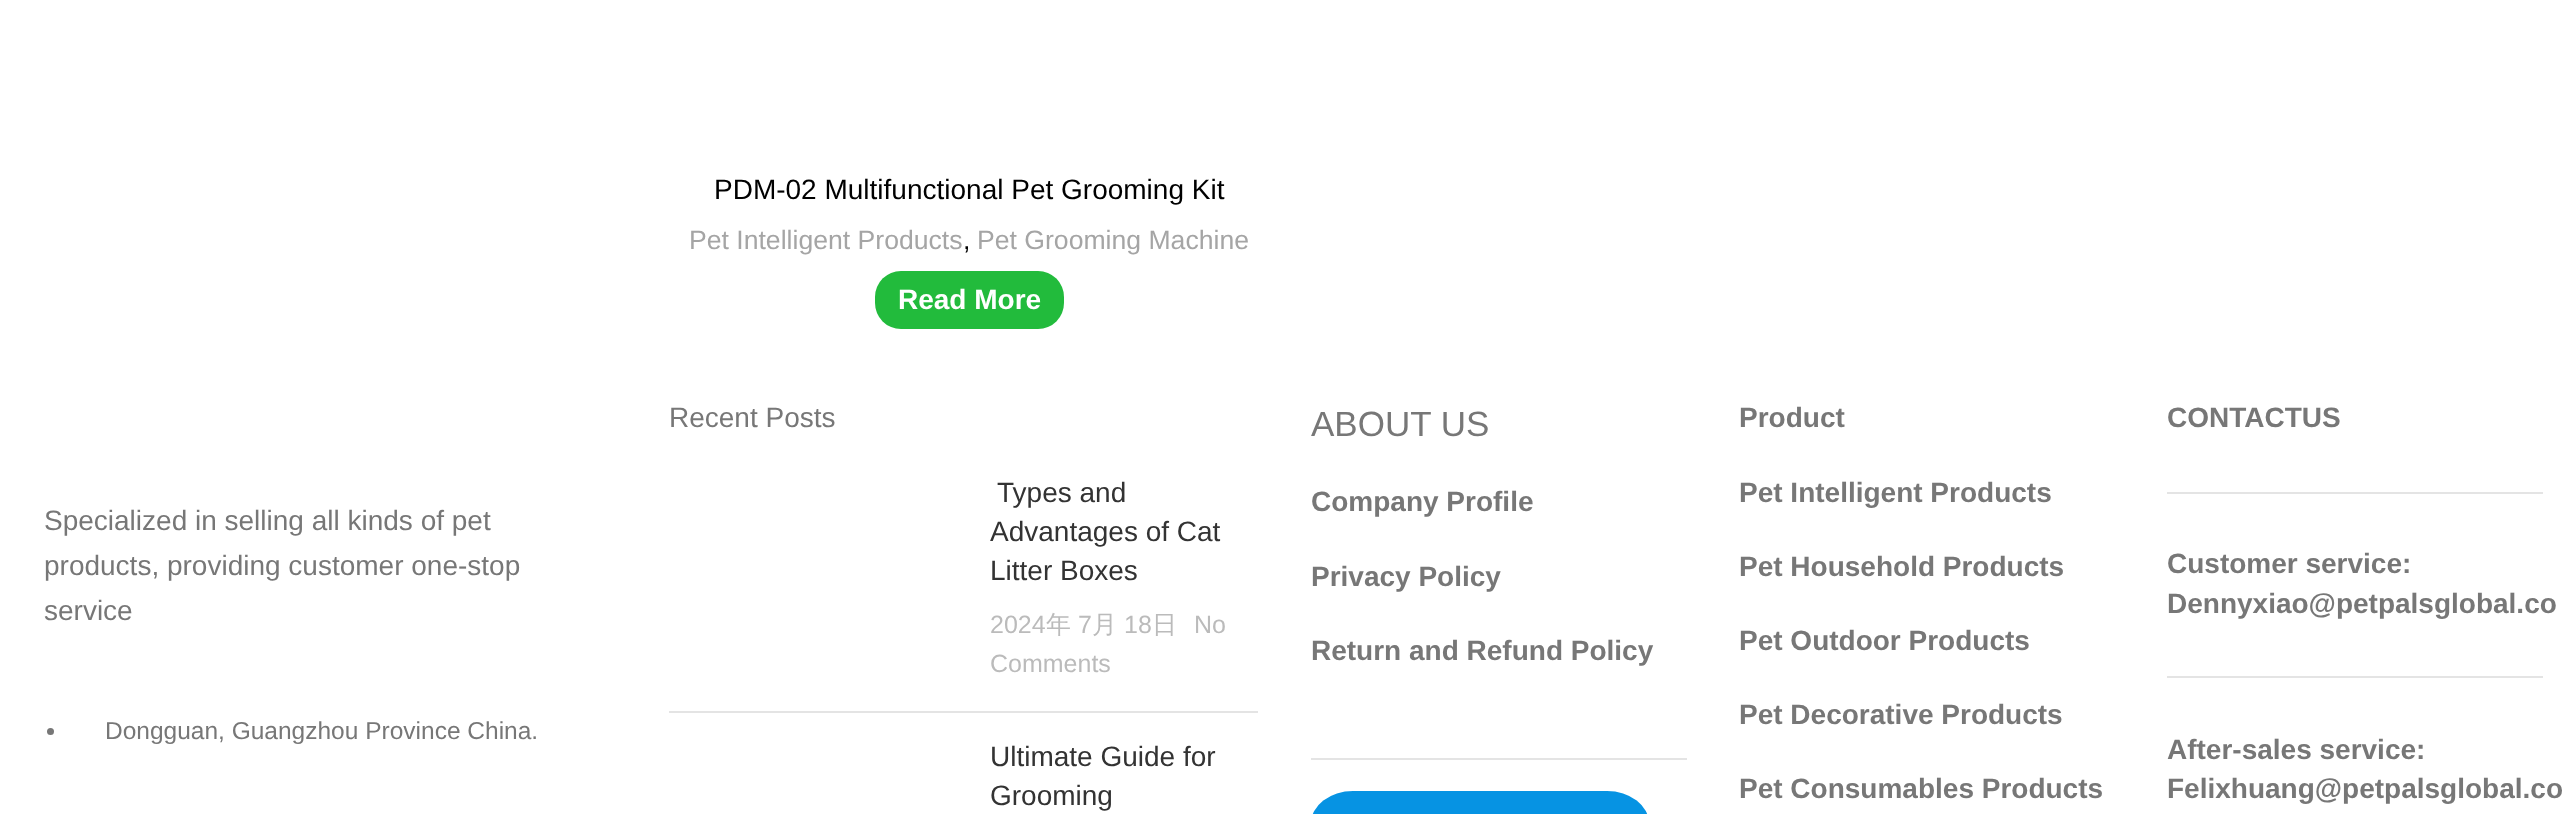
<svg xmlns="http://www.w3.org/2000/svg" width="2568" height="814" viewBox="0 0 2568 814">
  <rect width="100%" height="100%" fill="#ffffff"/>
  <text x="714" y="199" font-family="Liberation Sans" font-size="28" fill="#000000">PDM-02 Multifunctional Pet Grooming Kit</text>
  <text x="689" y="249" font-family="Liberation Sans" font-size="26.6" fill="#a5a5a5">Pet Intelligent Products</text>
  <text x="963" y="249" font-family="Liberation Sans" font-size="26.6" fill="#000000">,</text>
  <text x="977" y="249" font-family="Liberation Sans" font-size="26.6" fill="#a5a5a5">Pet Grooming Machine</text>
  <rect x="875" y="271" width="189" height="58" rx="26" fill="#22bb3c"/>
  <text x="898" y="309" font-family="Liberation Sans" font-size="28" font-weight="bold" fill="#ffffff">Read More</text>
  <text x="44" y="530" font-family="Liberation Sans" font-size="28" fill="#777777">Specialized in selling all kinds of pet</text>
  <text x="44" y="575" font-family="Liberation Sans" font-size="28" fill="#777777">products, providing customer one-stop</text>
  <text x="44" y="620" font-family="Liberation Sans" font-size="28" fill="#777777">service</text>
  <circle cx="50.5" cy="731.5" r="3.5" fill="#777777"/>
  <text x="105" y="739" font-family="Liberation Sans" font-size="24.5" fill="#777777">Dongguan, Guangzhou Province China.</text>
  <text x="669" y="427" font-family="Liberation Sans" font-size="28" fill="#777777">Recent Posts</text>
  <rect x="669" y="711" width="589" height="2" fill="#e4e4e4"/>
  <text x="997" y="502" font-family="Liberation Sans" font-size="28" fill="#333333">Types and</text>
  <text x="990" y="541" font-family="Liberation Sans" font-size="28" fill="#333333">Advantages of Cat</text>
  <text x="990" y="580" font-family="Liberation Sans" font-size="28" fill="#333333">Litter Boxes</text>
  <text x="990" y="633" font-family="Liberation Sans" font-size="25" fill="#bbbbbb">2024</text>
  <text x="1046" y="633" font-family="WenQuanYi Zen Hei" font-size="25" font-weight="500" fill="#bbbbbb">年</text>
  <text x="1078" y="633" font-family="Liberation Sans" font-size="25" fill="#bbbbbb">7</text>
  <text x="1092" y="633" font-family="WenQuanYi Zen Hei" font-size="25" font-weight="500" fill="#bbbbbb">月</text>
  <text x="1124" y="633" font-family="Liberation Sans" font-size="25" fill="#bbbbbb">18</text>
  <text x="1152" y="633" font-family="WenQuanYi Zen Hei" font-size="25" font-weight="500" fill="#bbbbbb">日</text>
  <text x="1194" y="633" font-family="Liberation Sans" font-size="25" fill="#bbbbbb">No</text>
  <text x="990" y="672" font-family="Liberation Sans" font-size="25" fill="#bbbbbb">Comments</text>
  <text x="990" y="766" font-family="Liberation Sans" font-size="28" fill="#333333">Ultimate Guide for</text>
  <text x="990" y="805" font-family="Liberation Sans" font-size="28" fill="#333333">Grooming</text>
  <rect x="1311" y="758" width="376" height="2" fill="#e4e4e4"/>
  <text x="1311" y="436" font-family="Liberation Sans" font-size="35" fill="#777777">ABOUT US</text>
  <text x="1311" y="511" font-family="Liberation Sans" font-size="28" font-weight="bold" fill="#777777">Company Profile</text>
  <text x="1311" y="586" font-family="Liberation Sans" font-size="28" font-weight="bold" fill="#777777">Privacy Policy</text>
  <text x="1311" y="660" font-family="Liberation Sans" font-size="28" font-weight="bold" fill="#777777">Return and Refund Policy</text>
  <rect x="1311" y="791" width="338" height="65" rx="42" fill="#0693e3"/>
  <text x="1739" y="427" font-family="Liberation Sans" font-size="28" font-weight="bold" fill="#777777">Product</text>
  <text x="1739" y="502" font-family="Liberation Sans" font-size="28" font-weight="bold" fill="#777777">Pet Intelligent Products</text>
  <text x="1739" y="576" font-family="Liberation Sans" font-size="28" font-weight="bold" fill="#777777">Pet Household Products</text>
  <text x="1739" y="650" font-family="Liberation Sans" font-size="28" font-weight="bold" fill="#777777">Pet Outdoor Products</text>
  <text x="1739" y="724" font-family="Liberation Sans" font-size="28" font-weight="bold" fill="#777777">Pet Decorative Products</text>
  <text x="1739" y="798" font-family="Liberation Sans" font-size="28" font-weight="bold" fill="#777777">Pet Consumables Products</text>
  <rect x="2167" y="492" width="376" height="2" fill="#e4e4e4"/>
  <text x="2167" y="427" font-family="Liberation Sans" font-size="28" font-weight="bold" fill="#777777">CONTACTUS</text>
  <rect x="2167" y="676" width="376" height="2" fill="#e4e4e4"/>
  <text x="2167" y="573" font-family="Liberation Sans" font-size="28" font-weight="bold" fill="#777777">Customer service:</text>
  <text x="2167" y="613" font-family="Liberation Sans" font-size="28" font-weight="bold" fill="#777777">Dennyxiao@petpalsglobal.co</text>
  <text x="2167" y="759" font-family="Liberation Sans" font-size="28" font-weight="bold" fill="#777777">After-sales service:</text>
  <text x="2167" y="798" font-family="Liberation Sans" font-size="28" font-weight="bold" fill="#777777">Felixhuang@petpalsglobal.co</text>
</svg>
